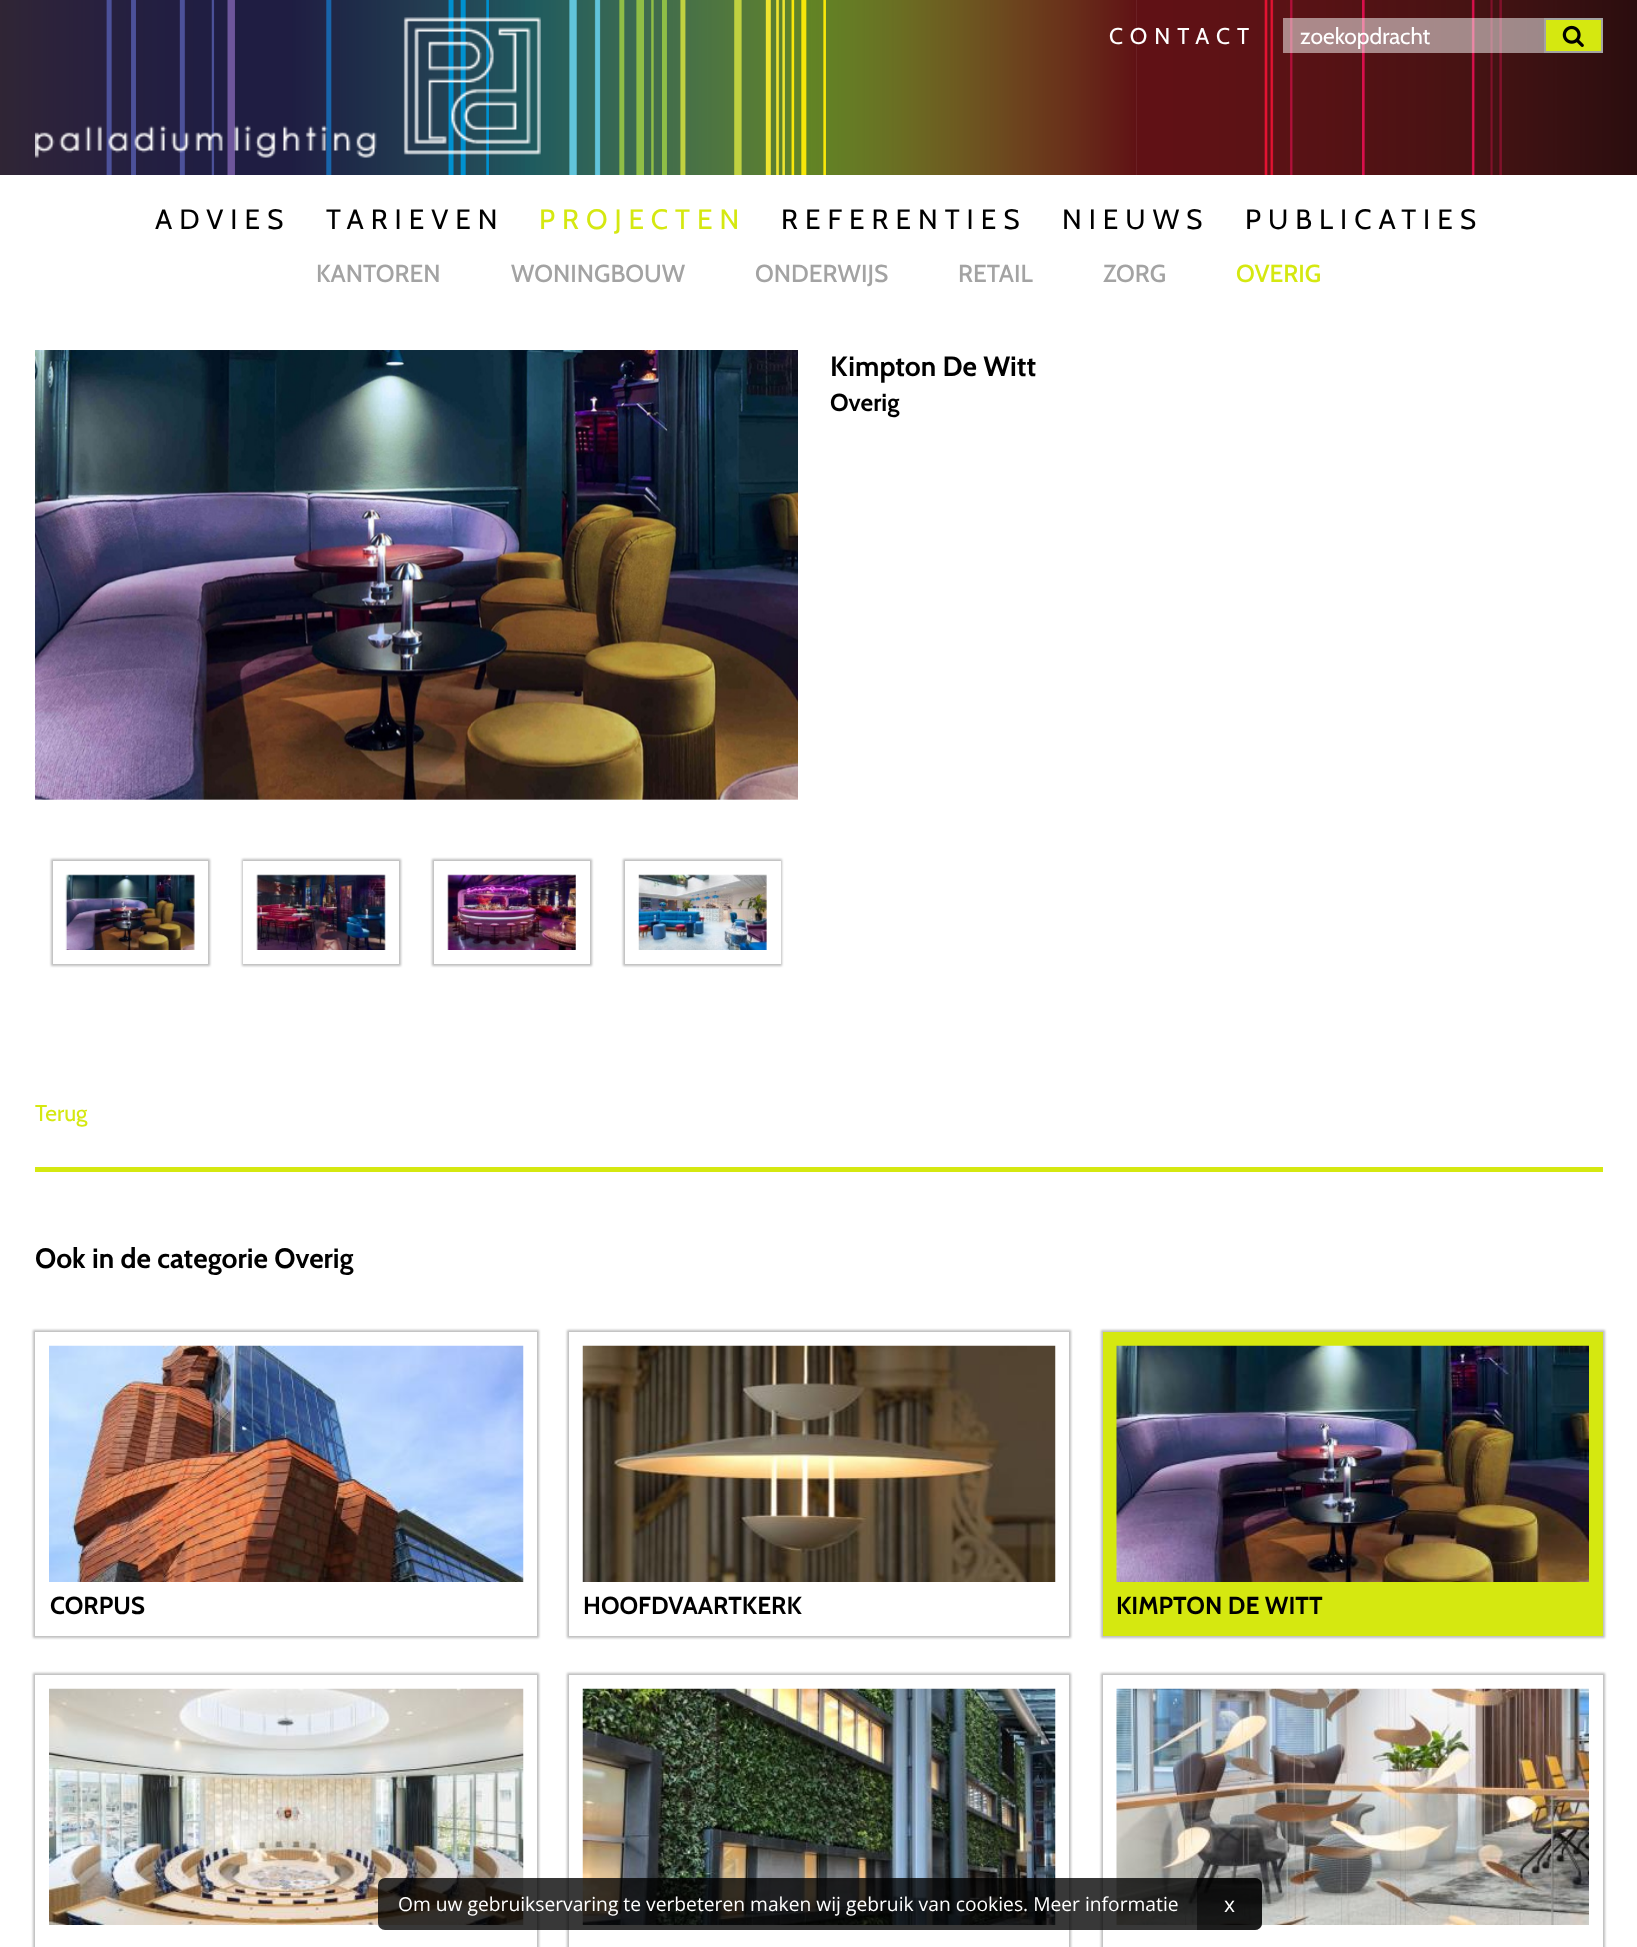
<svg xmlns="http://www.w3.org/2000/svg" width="1637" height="1947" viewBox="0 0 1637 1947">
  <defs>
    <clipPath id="clip1"><rect x="1300" y="21" width="240" height="28"/></clipPath>
    <clipPath id="clip2"><path d="M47 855H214V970H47ZM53 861H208V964H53Z" clip-rule="evenodd"/></clipPath>
    <filter id="blur1" x="-50%" y="-200%" width="200%" height="500%"><feGaussianBlur stdDeviation="1"/></filter>
    <clipPath id="clip3"><path d="M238 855H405V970H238ZM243 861H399V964H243Z" clip-rule="evenodd"/></clipPath>
    <clipPath id="clip4"><path d="M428 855H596V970H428ZM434 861H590V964H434Z" clip-rule="evenodd"/></clipPath>
    <clipPath id="clip5"><path d="M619 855H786V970H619ZM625 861H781V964H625Z" clip-rule="evenodd"/></clipPath>
    <clipPath id="clip6"><path d="M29 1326H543V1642H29ZM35 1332H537V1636H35Z" clip-rule="evenodd"/></clipPath>
    <clipPath id="clip7"><path d="M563 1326H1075V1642H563ZM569 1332H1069V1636H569Z" clip-rule="evenodd"/></clipPath>
    <clipPath id="clip8"><path d="M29 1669H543V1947H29ZM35 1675H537V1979H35Z" clip-rule="evenodd"/></clipPath>
    <clipPath id="clip9"><path d="M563 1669H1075V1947H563ZM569 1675H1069V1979H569Z" clip-rule="evenodd"/></clipPath>
    <clipPath id="clip10"><path d="M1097 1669H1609V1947H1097ZM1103 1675H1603V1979H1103Z" clip-rule="evenodd"/></clipPath>
  </defs>
  <rect width="100%" height="100%" fill="#ffffff"/>
  <image x="0" y="0" width="1637" height="175" href="img1.png"/>
  <image x="35" y="17" width="506" height="141" href="img2.png"/>
  <text x="1109" y="44" font-family="Cabin" font-size="22.75" letter-spacing="7" fill="#ffffff">CONTACT</text>
  <rect x="1283" y="18" width="261" height="35" fill="#ffffff" fill-opacity="0.5"/>
  <g clip-path="url(#clip1)">
    <text x="1300" y="44" font-family="Cabin" font-size="22.75" fill="#ffffff">zoekopdracht</text>
  </g>
  <rect x="1545" y="19" width="57" height="33" fill="#d5e810" stroke="#a3a3a3" stroke-width="2"/>
  <image x="1562" y="25" width="22" height="22" href="img3.png"/>
  <text x="155" y="229" font-family="Cabin" font-size="28" letter-spacing="7" fill="#000000">ADVIES</text>
  <text x="539" y="229" font-family="Cabin" font-size="28" letter-spacing="7" fill="#d5e810">PROJECTEN</text>
  <text x="316" y="282" font-family="Cabin" font-size="24.5" font-weight="500" fill="#a3a3a3">KANTOREN</text>
  <text x="511" y="282" font-family="Cabin" font-size="24.5" font-weight="500" fill="#a3a3a3">WONINGBOUW</text>
  <text x="755" y="282" font-family="Cabin" font-size="24.5" font-weight="500" fill="#a3a3a3">ONDERWIJS</text>
  <text x="958" y="282" font-family="Cabin" font-size="24.5" font-weight="500" fill="#a3a3a3">RETAIL</text>
  <text x="1103" y="282" font-family="Cabin" font-size="24.5" font-weight="500" fill="#a3a3a3">ZORG</text>
  <text x="1236" y="282" font-family="Cabin" font-size="24.5" font-weight="500" fill="#d5e810">OVERIG</text>
  <text x="326" y="229" font-family="Cabin" font-size="28" letter-spacing="7" fill="#000000">TARIEVEN</text>
  <text x="781" y="229" font-family="Cabin" font-size="28" letter-spacing="7" fill="#000000">REFERENTIES</text>
  <text x="1062" y="229" font-family="Cabin" font-size="28" letter-spacing="7" fill="#000000">NIEUWS</text>
  <text x="1245" y="229" font-family="Cabin" font-size="28" letter-spacing="7" fill="#000000">PUBLICATIES</text>
  <image x="35" y="350" width="763" height="450" href="img4.png"/>
  <g clip-path="url(#clip2)">
    <rect x="51" y="859" width="159" height="107" fill="#a3a3a3" fill-opacity="0.7" filter="url(#blur1)"/>
  </g>
  <image x="65" y="874" width="130" height="76" href="img5.png"/>
  <g clip-path="url(#clip3)">
    <rect x="242" y="859" width="159" height="107" fill="#a3a3a3" fill-opacity="0.7" filter="url(#blur1)"/>
  </g>
  <image x="256" y="874" width="130" height="76" href="img6.png"/>
  <g clip-path="url(#clip4)">
    <rect x="432" y="859" width="160" height="107" fill="#a3a3a3" fill-opacity="0.7" filter="url(#blur1)"/>
  </g>
  <image x="447" y="874" width="129" height="76" href="img7.png"/>
  <g clip-path="url(#clip5)">
    <rect x="623" y="859" width="159" height="107" fill="#a3a3a3" fill-opacity="0.7" filter="url(#blur1)"/>
  </g>
  <image x="638" y="874" width="129" height="76" href="img8.png"/>
  <text x="830" y="376" font-family="Cabin" font-size="28" font-weight="bold" fill="#000000">Kimpton De Witt</text>
  <text x="830" y="411" font-family="Cabin" font-size="24.5" font-weight="bold" fill="#000000">Overig</text>
  <text x="35" y="1121" font-family="Cabin" font-size="22.75" fill="#d5e810">Terug</text>
  <rect x="35" y="1167" width="1568" height="5" fill="#d5e810"/>
  <text x="35" y="1268" font-family="Cabin" font-size="28" font-weight="bold" fill="#000000">Ook in de categorie Overig</text>
  <g clip-path="url(#clip6)">
    <rect x="33" y="1330" width="506" height="308" fill="#a3a3a3" fill-opacity="0.7" filter="url(#blur1)"/>
  </g>
  <image x="49" y="1345" width="475" height="237" href="img9.png"/>
  <text x="50" y="1614" font-family="Cabin" font-size="24.5" font-weight="bold" fill="#000000">CORPUS</text>
  <g clip-path="url(#clip7)">
    <rect x="567" y="1330" width="504" height="308" fill="#a3a3a3" fill-opacity="0.7" filter="url(#blur1)"/>
  </g>
  <image x="582" y="1345" width="474" height="237" href="img10.png"/>
  <text x="583" y="1614" font-family="Cabin" font-size="24.5" font-weight="bold" fill="#000000">HOOFDVAARTKERK</text>
  <rect x="1101" y="1330" width="504" height="308" fill="#a3a3a3" fill-opacity="0.7" filter="url(#blur1)"/>
  <rect x="1103" y="1332" width="500" height="304" fill="#d5e810"/>
  <image x="1116" y="1345" width="473" height="237" href="img11.png"/>
  <text x="1116" y="1614" font-family="Cabin" font-size="24.5" font-weight="bold" fill="#000000">KIMPTON DE WITT</text>
  <g clip-path="url(#clip8)">
    <rect x="33" y="1673" width="506" height="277" fill="#a3a3a3" fill-opacity="0.7" filter="url(#blur1)"/>
  </g>
  <image x="49" y="1688" width="475" height="237" href="img12.png"/>
  <g clip-path="url(#clip9)">
    <rect x="567" y="1673" width="504" height="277" fill="#a3a3a3" fill-opacity="0.7" filter="url(#blur1)"/>
  </g>
  <image x="582" y="1688" width="474" height="237" href="img13.png"/>
  <g clip-path="url(#clip10)">
    <rect x="1101" y="1673" width="504" height="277" fill="#a3a3a3" fill-opacity="0.7" filter="url(#blur1)"/>
  </g>
  <image x="1116" y="1688" width="473" height="237" href="img14.png"/>
  <rect x="378" y="1878" width="884" height="52" rx="7" fill="#000000" fill-opacity="0.78"/>
  <text x="398" y="1911" font-family="Open Sans" font-size="19.25" fill="#ffffff">Om uw gebruikservaring te verbeteren maken wij gebruik van cookies. Meer informatie</text>
  <path d="M1197 1878H1255C1259 1878 1262 1881 1262 1885V1923C1262 1927 1259 1930 1255 1930H1197Z" fill="#000000" fill-opacity="0.48"/>
  <text x="1224" y="1912" font-family="Open Sans" font-size="21" fill="#ffffff">x</text>
</svg>
